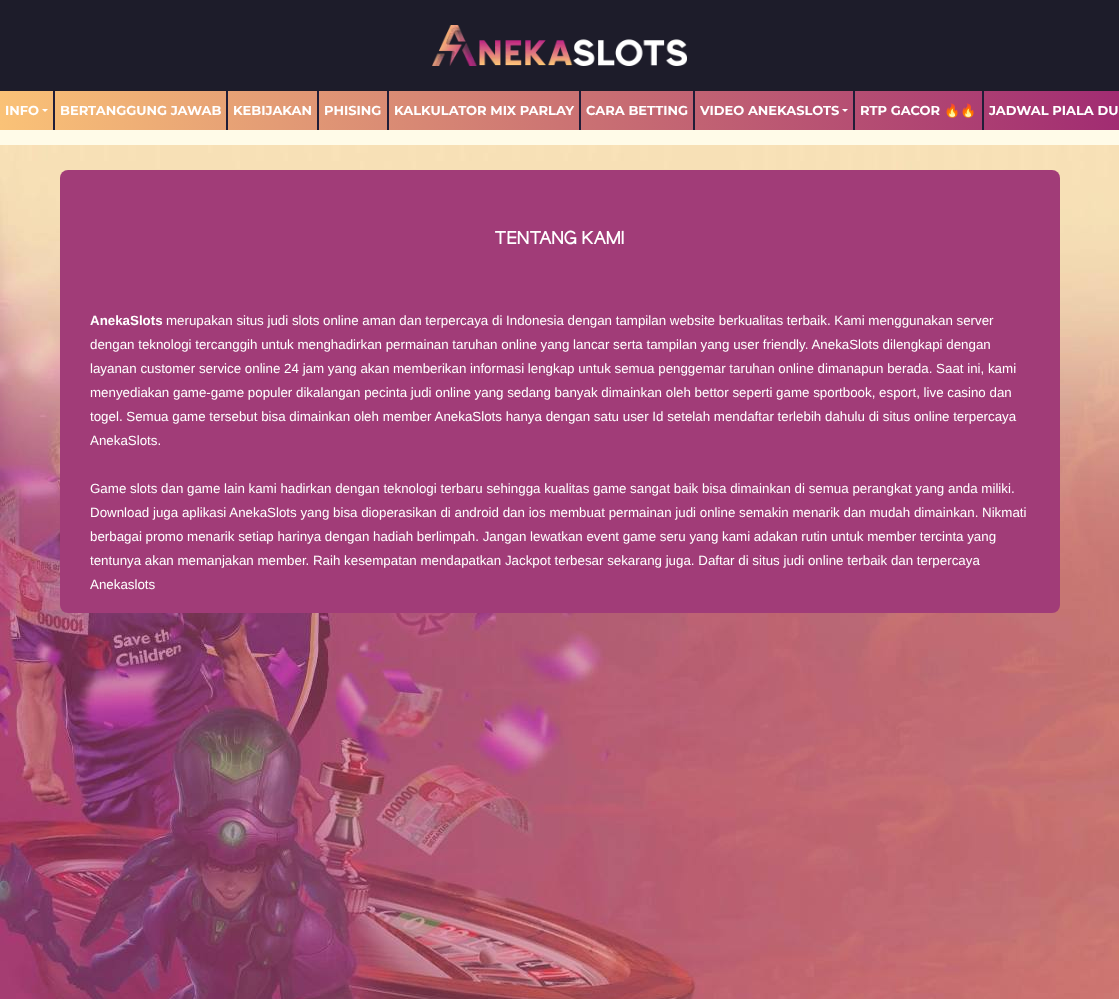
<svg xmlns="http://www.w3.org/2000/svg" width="1119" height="999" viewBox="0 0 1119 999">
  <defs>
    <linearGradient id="g1" gradientUnits="userSpaceOnUse" x1="0" y1="111" x2="1119" y2="110"><stop offset="0" stop-color="#fac277"/><stop offset="0.5" stop-color="#cc7473"/><stop offset="1" stop-color="#a12c72"/></linearGradient>
  </defs>
  <rect width="100%" height="100%" fill="#fffbe8"/>
  <rect x="0" y="0" width="1119" height="91" fill="#1d1c2a"/>
  <image x="432" y="25" width="255" height="41" href="img1.png"/>
  <rect x="0" y="91" width="1119" height="39" fill="url(#g1)"/>
  <rect x="53" y="91" width="2" height="39" fill="#201d38"/>
  <text x="5" y="115" font-family="Montserrat" font-size="13" font-weight="bold" fill="#ffffff">INFO</text>
  <path d="M42 109H48L45 112Z" fill="#ffffff"/>
  <rect x="226" y="91" width="2" height="39" fill="#201d38"/>
  <text x="60" y="115" font-family="Montserrat" font-size="13" font-weight="bold" fill="#ffffff">BERTANGGUNG JAWAB</text>
  <rect x="317" y="91" width="2" height="39" fill="#201d38"/>
  <text x="233" y="115" font-family="Montserrat" font-size="13" font-weight="bold" fill="#ffffff">KEBIJAKAN</text>
  <rect x="387" y="91" width="2" height="39" fill="#201d38"/>
  <text x="324" y="115" font-family="Montserrat" font-size="13" font-weight="bold" fill="#ffffff">PHISING</text>
  <rect x="579" y="91" width="2" height="39" fill="#201d38"/>
  <text x="394" y="115" font-family="Montserrat" font-size="13" font-weight="bold" fill="#ffffff">KALKULATOR MIX PARLAY</text>
  <rect x="693" y="91" width="2" height="39" fill="#201d38"/>
  <text x="586" y="115" font-family="Montserrat" font-size="13" font-weight="bold" fill="#ffffff">CARA BETTING</text>
  <rect x="853" y="91" width="2" height="39" fill="#201d38"/>
  <text x="700" y="115" font-family="Montserrat" font-size="13" font-weight="bold" fill="#ffffff">VIDEO ANEKASLOTS</text>
  <path d="M842 109H848L845 112Z" fill="#ffffff"/>
  <rect x="982" y="91" width="2" height="39" fill="#201d38"/>
  <text x="860" y="115" font-family="Montserrat" font-size="13" font-weight="bold" fill="#ffffff">RTP GACOR</text>
  <text x="944" y="115" font-family="Noto Color Emoji" font-size="13" font-weight="bold" fill="#ffffff">🔥🔥</text>
  <text x="989" y="115" font-family="Montserrat" font-size="13" font-weight="bold" fill="#ffffff">JADWAL PIALA DU</text>
  <image x="0" y="145" width="1119" height="854" href="img2.png"/>
  <rect x="60" y="170" width="1000" height="443" rx="8" fill="#a13c78"/>
  <text x="494" y="244" font-family="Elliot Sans" font-size="18" font-weight="bold" fill="#ffffff">TENTANG KAMI</text>
  <text x="90" y="325" font-family="Liberation Sans" font-size="13.33" font-weight="bold" fill="#ffffff">AnekaSlots</text>
  <text x="166" y="325" font-family="Liberation Sans" font-size="13.33" fill="#ffffff">merupakan situs judi slots online aman dan terpercaya di Indonesia dengan tampilan website berkualitas terbaik. Kami menggunakan server</text>
  <text x="90" y="349" font-family="Liberation Sans" font-size="13.33" fill="#ffffff">dengan teknologi tercanggih untuk menghadirkan permainan taruhan online yang lancar serta tampilan yang user friendly. AnekaSlots dilengkapi dengan</text>
  <text x="90" y="373" font-family="Liberation Sans" font-size="13.33" fill="#ffffff">layanan customer service online 24 jam yang akan memberikan informasi lengkap untuk semua penggemar taruhan online dimanapun berada. Saat ini, kami</text>
  <text x="90" y="397" font-family="Liberation Sans" font-size="13.33" fill="#ffffff">menyediakan game-game populer dikalangan pecinta judi online yang sedang banyak dimainkan oleh bettor seperti game sportbook, esport, live casino dan</text>
  <text x="90" y="421" font-family="Liberation Sans" font-size="13.33" fill="#ffffff">togel. Semua game tersebut bisa dimainkan oleh member AnekaSlots hanya dengan satu user Id setelah mendaftar terlebih dahulu di situs online terpercaya</text>
  <text x="90" y="445" font-family="Liberation Sans" font-size="13.33" fill="#ffffff">AnekaSlots.</text>
  <text x="90" y="493" font-family="Liberation Sans" font-size="13.33" fill="#ffffff">Game slots dan game lain kami hadirkan dengan teknologi terbaru sehingga kualitas game sangat baik bisa dimainkan di semua perangkat yang anda miliki.</text>
  <text x="90" y="517" font-family="Liberation Sans" font-size="13.33" fill="#ffffff">Download juga aplikasi AnekaSlots yang bisa dioperasikan di android dan ios membuat permainan judi online semakin menarik dan mudah dimainkan. Nikmati</text>
  <text x="90" y="541" font-family="Liberation Sans" font-size="13.33" fill="#ffffff">berbagai promo menarik setiap harinya dengan hadiah berlimpah. Jangan lewatkan event game seru yang kami adakan rutin untuk member tercinta yang</text>
  <text x="90" y="565" font-family="Liberation Sans" font-size="13.33" fill="#ffffff">tentunya akan memanjakan member. Raih kesempatan mendapatkan Jackpot terbesar sekarang juga. Daftar di situs judi online terbaik dan terpercaya</text>
  <text x="90" y="589" font-family="Liberation Sans" font-size="13.33" fill="#ffffff">Anekaslots</text>
</svg>
